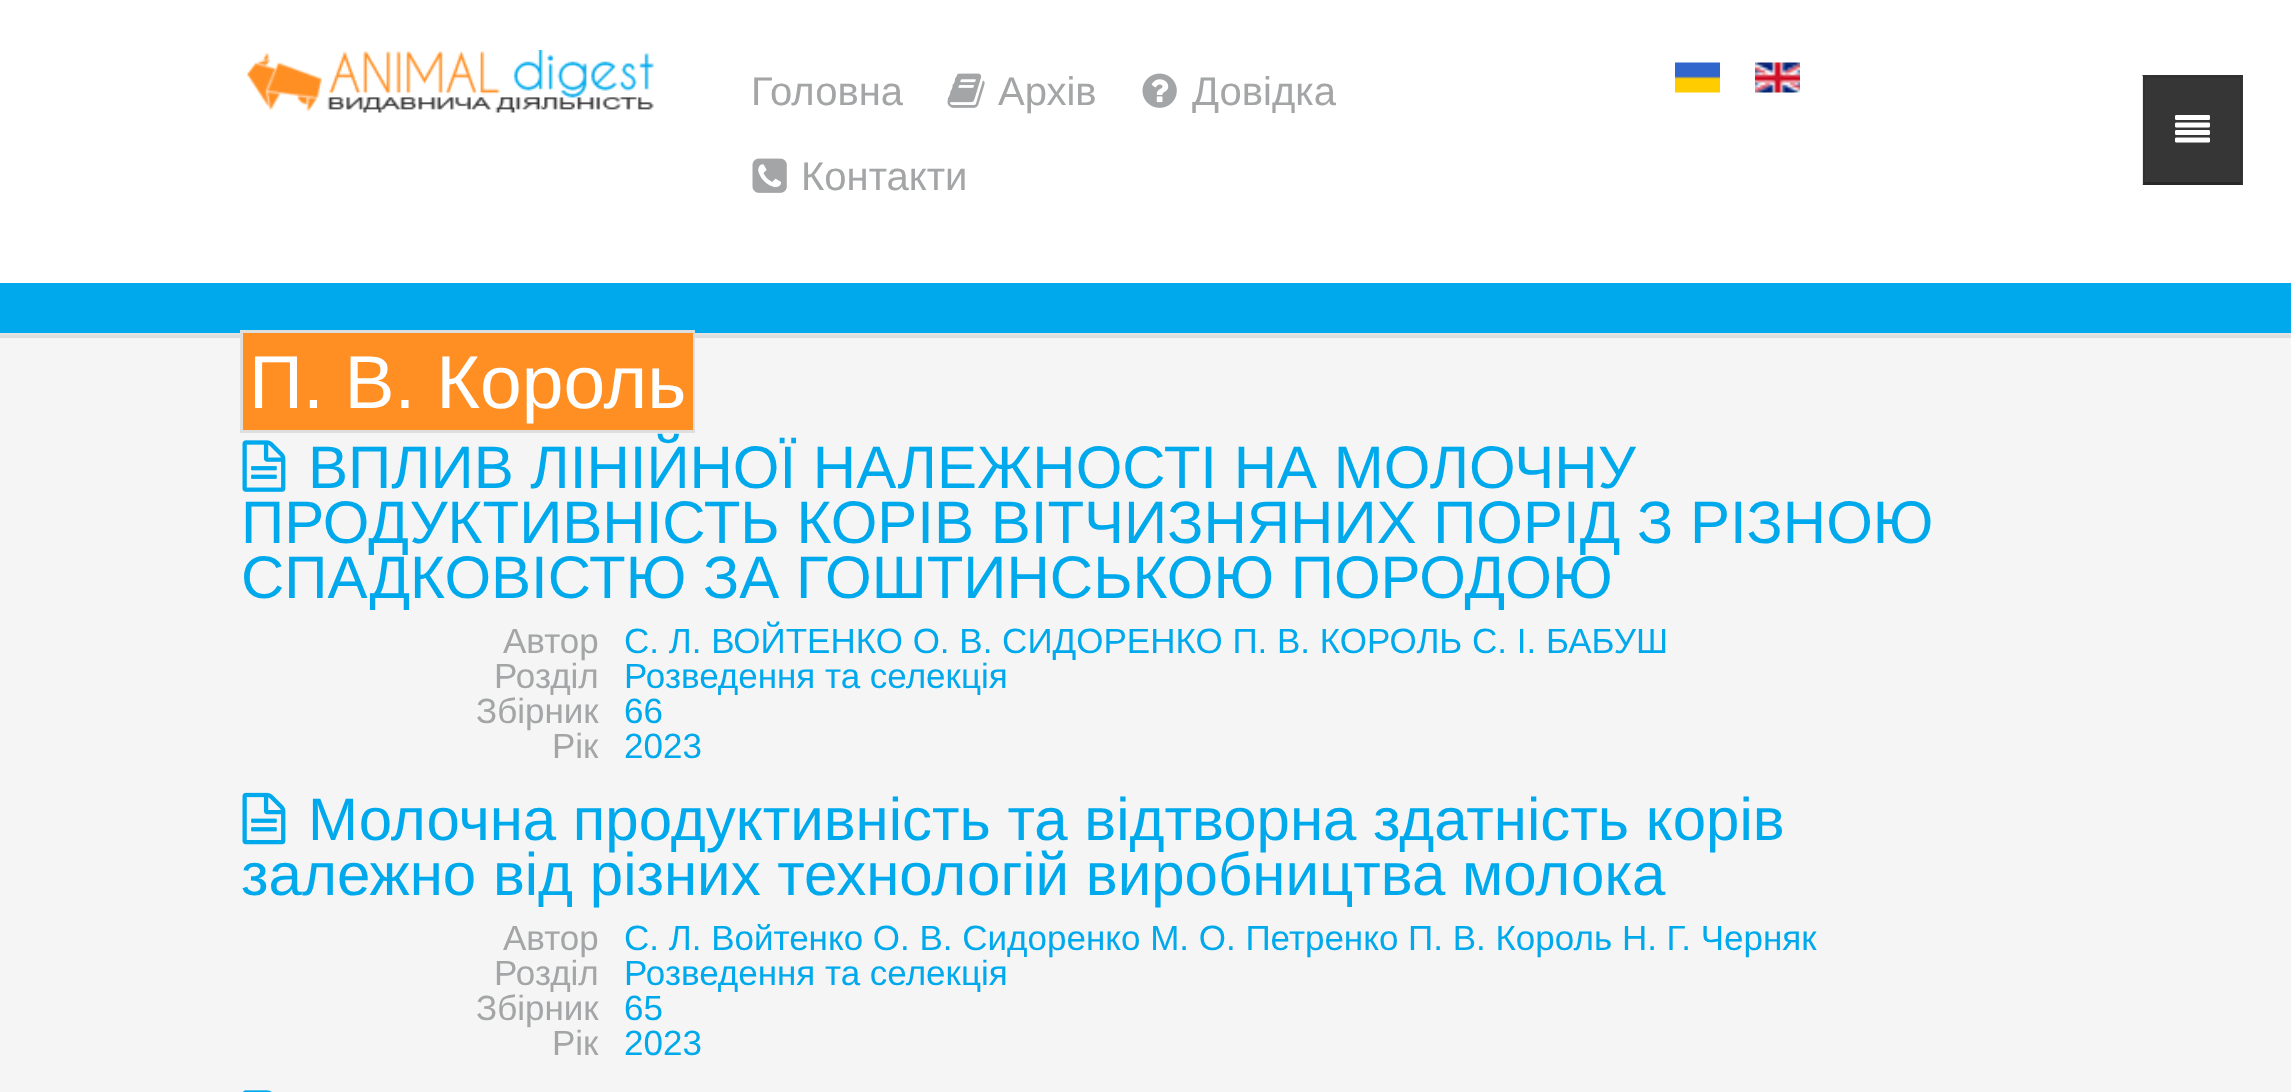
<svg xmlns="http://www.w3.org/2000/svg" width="2291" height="1092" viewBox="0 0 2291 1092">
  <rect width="100%" height="100%" fill="#ffffff"/>
  <image x="247" y="50" width="407" height="63" href="img1.png"/>
  <text x="751" y="105" font-family="Liberation Sans" font-size="40" fill="#a3a5a6">Головна</text>
  <image x="947" y="73" width="38" height="35" href="img2.png"/>
  <text x="998" y="105" font-family="Liberation Sans" font-size="40" fill="#a3a5a6">Архів</text>
  <image x="1142" y="73" width="35" height="35" href="img3.png"/>
  <text x="1192" y="105" font-family="Liberation Sans" font-size="40" fill="#a3a5a6">Довідка</text>
  <image x="752" y="158" width="35" height="35" href="img4.png"/>
  <text x="801" y="190" font-family="Liberation Sans" font-size="40" fill="#a3a5a6">Контакти</text>
  <image x="1675" y="62" width="45" height="31" href="img5.png"/>
  <image x="1755" y="62" width="45" height="31" href="img6.png"/>
  <rect x="2143" y="75" width="100" height="110" fill="#363636"/>
  <path d="M2142 75H2242L2240 78H2145Z" fill="#313131"/>
  <path d="M2242 75V185L2240 182V78Z" fill="#313131"/>
  <path d="M2242 185H2142L2145 182H2240Z" fill="#000000" fill-opacity="0.25"/>
  <path d="M2142 185V75L2145 78V182Z" fill="#000000" fill-opacity="0.1"/>
  <image x="2175" y="115" width="35" height="28" href="img7.png"/>
  <rect x="0" y="283" width="2291" height="50" fill="#00a9ec"/>
  <rect x="0" y="333" width="2291" height="2" fill="#e4e4e4"/>
  <rect x="0" y="338" width="2291" height="754" fill="#f5f5f5"/>
  <rect x="0" y="335" width="2291" height="3" fill="#dedede"/>
  <rect x="241.5" y="331.5" width="452" height="100" fill="none" stroke="#dedede" stroke-width="3"/>
  <rect x="243" y="333" width="450" height="97" fill="#ff8f23"/>
  <text x="249" y="408" font-family="Liberation Sans" font-size="75" fill="#ffffff">П. В. Король</text>
  <image x="242" y="440" width="44" height="52" href="img8.png"/>
  <text x="308" y="488" font-family="Liberation Sans" font-size="60" fill="#00a9ec">ВПЛИВ ЛІНІЙНОЇ НАЛЕЖНОСТІ НА МОЛОЧНУ</text>
  <text x="241" y="543" font-family="Liberation Sans" font-size="60" fill="#00a9ec">ПРОДУКТИВНІСТЬ КОРІВ ВІТЧИЗНЯНИХ ПОРІД З РІЗНОЮ</text>
  <text x="241" y="598" font-family="Liberation Sans" font-size="60" fill="#00a9ec">СПАДКОВІСТЮ ЗА ГОШТИНСЬКОЮ ПОРОДОЮ</text>
  <text x="503" y="653" font-family="Liberation Sans" font-size="35" fill="#a3a5a6">Автор</text>
  <text x="624" y="653" font-family="Liberation Sans" font-size="35" fill="#00a9ec">С. Л. ВОЙТЕНКО О. В. СИДОРЕНКО П. В. КОРОЛЬ С. І. БАБУШ</text>
  <text x="494" y="688" font-family="Liberation Sans" font-size="35" fill="#a3a5a6">Розділ</text>
  <text x="624" y="688" font-family="Liberation Sans" font-size="35" fill="#00a9ec">Розведення та селекція</text>
  <text x="476" y="723" font-family="Liberation Sans" font-size="35" fill="#a3a5a6">Збірник</text>
  <text x="624" y="723" font-family="Liberation Sans" font-size="35" fill="#00a9ec">66</text>
  <text x="552" y="758" font-family="Liberation Sans" font-size="35" fill="#a3a5a6">Рік</text>
  <text x="624" y="758" font-family="Liberation Sans" font-size="35" fill="#00a9ec">2023</text>
  <image x="242" y="792" width="44" height="53" href="img9.png"/>
  <text x="308" y="840" font-family="Liberation Sans" font-size="60" fill="#00a9ec">Молочна продуктивність та відтворна здатність корів</text>
  <text x="241" y="895" font-family="Liberation Sans" font-size="60" fill="#00a9ec">залежно від різних технологій виробництва молока</text>
  <text x="503" y="950" font-family="Liberation Sans" font-size="35" fill="#a3a5a6">Автор</text>
  <text x="624" y="950" font-family="Liberation Sans" font-size="35" fill="#00a9ec">С. Л. Войтенко О. В. Сидоренко М. О. Петренко П. В. Король Н. Г. Черняк</text>
  <text x="494" y="985" font-family="Liberation Sans" font-size="35" fill="#a3a5a6">Розділ</text>
  <text x="624" y="985" font-family="Liberation Sans" font-size="35" fill="#00a9ec">Розведення та селекція</text>
  <text x="476" y="1020" font-family="Liberation Sans" font-size="35" fill="#a3a5a6">Збірник</text>
  <text x="624" y="1020" font-family="Liberation Sans" font-size="35" fill="#00a9ec">65</text>
  <text x="552" y="1055" font-family="Liberation Sans" font-size="35" fill="#a3a5a6">Рік</text>
  <text x="624" y="1055" font-family="Liberation Sans" font-size="35" fill="#00a9ec">2023</text>
  <image x="243" y="1090" width="29" height="2" href="img10.png"/>
</svg>
